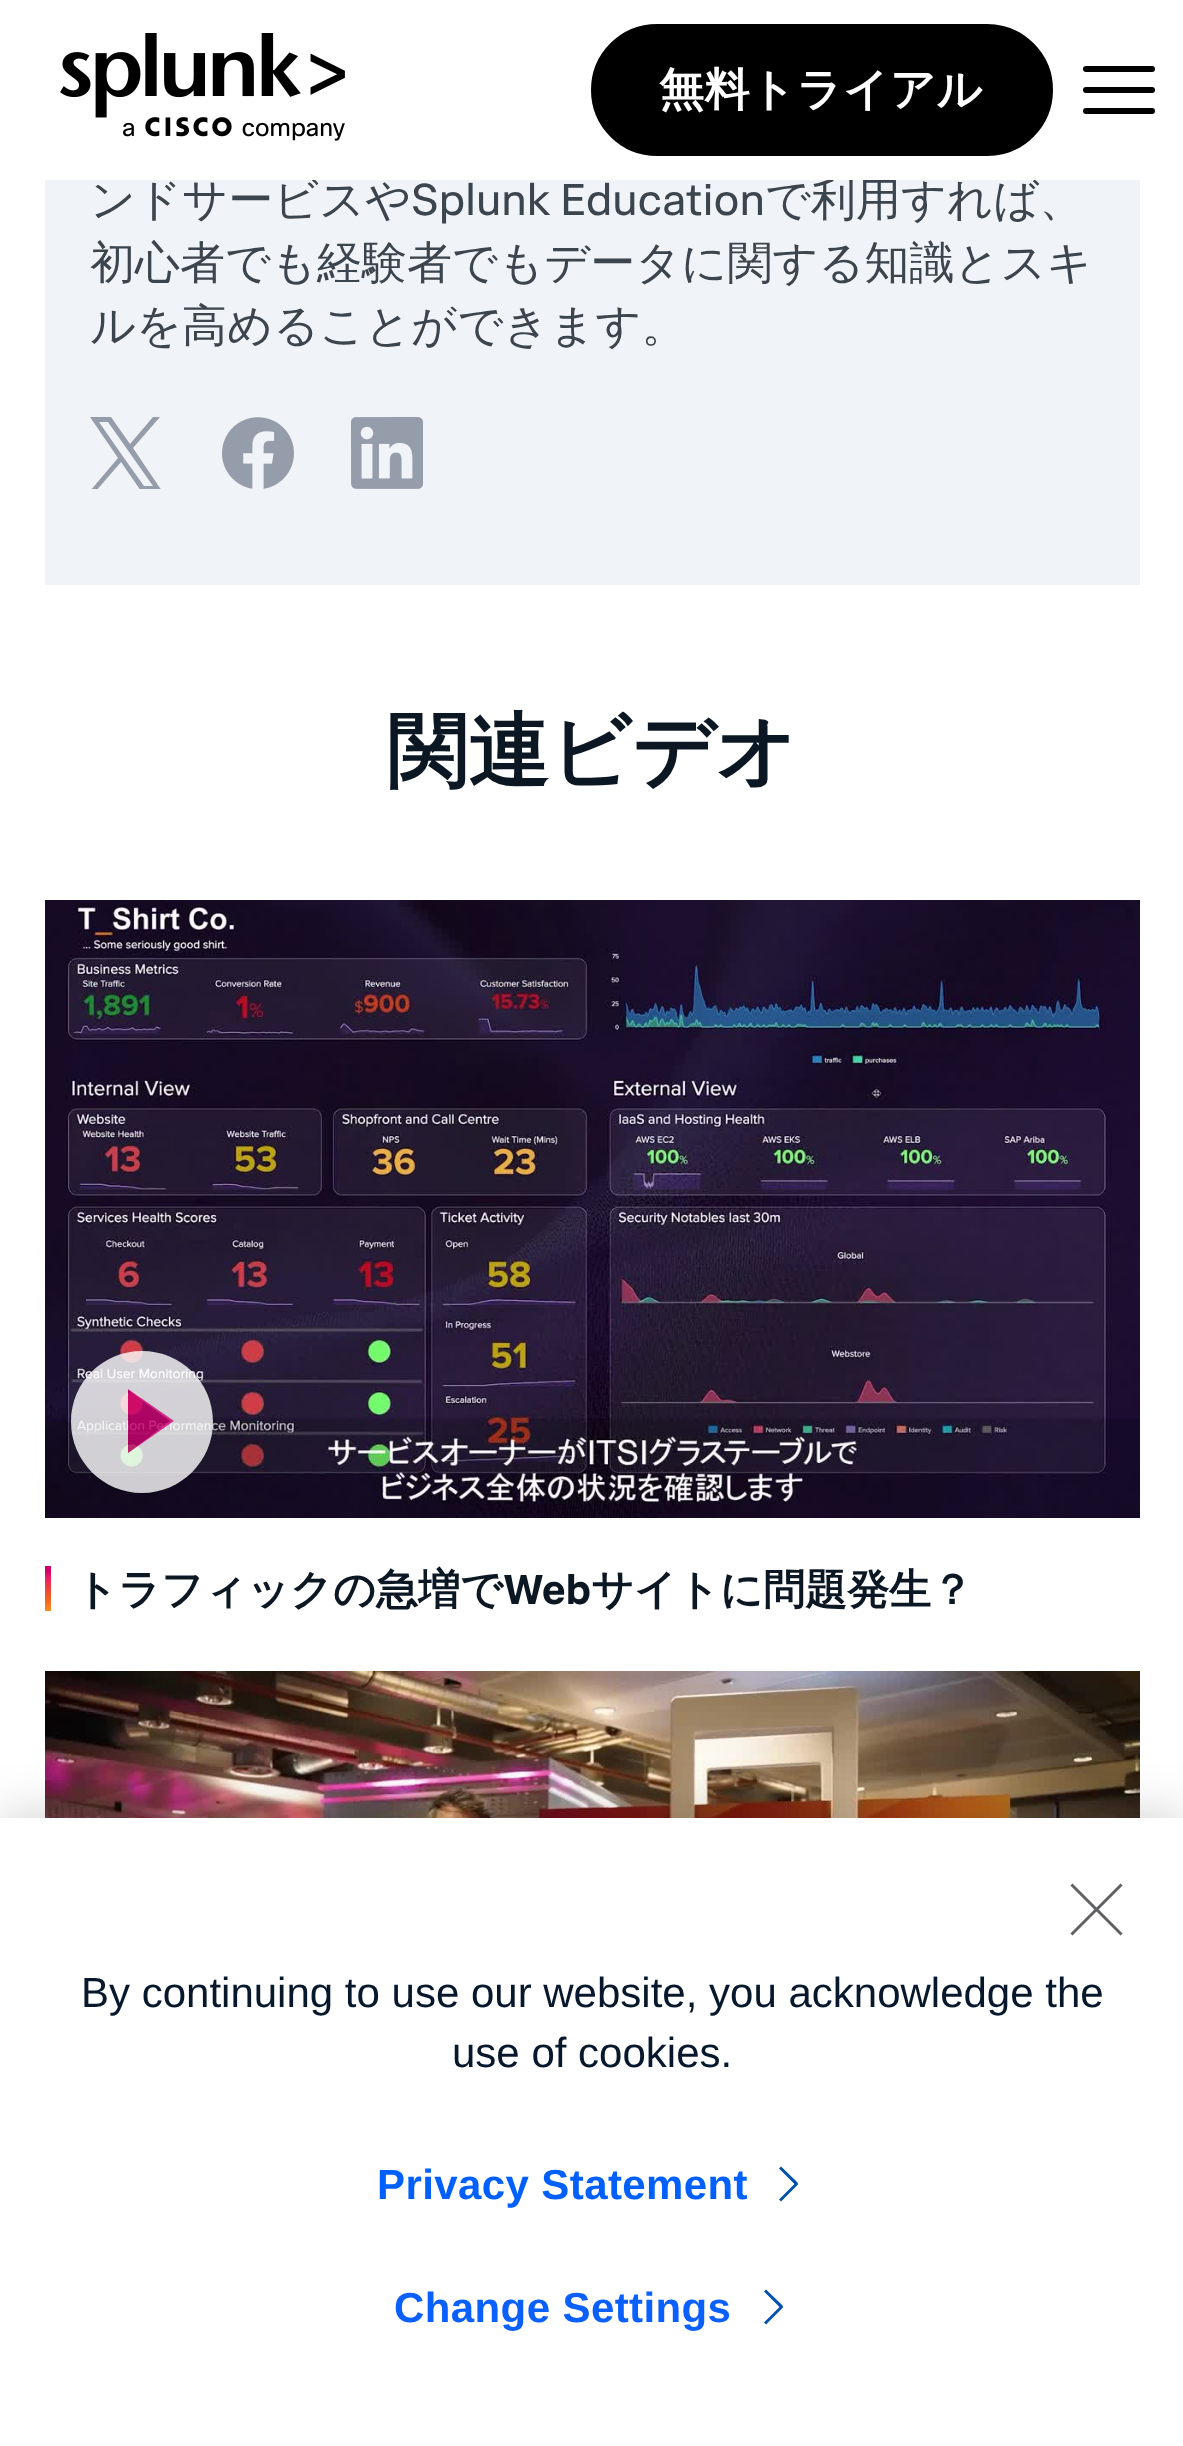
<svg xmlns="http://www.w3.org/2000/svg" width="1183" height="2446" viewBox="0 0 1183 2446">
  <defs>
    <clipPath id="clip1"><rect x="90" y="417" width="72" height="72"/></clipPath>
    <filter id="blur1" x="-50%" y="-200%" width="200%" height="500%"><feGaussianBlur stdDeviation="27"/></filter>
  </defs>
  <rect width="100%" height="100%" fill="#ffffff"/>
  <rect x="45" y="180" width="1095" height="405" fill="#f0f3f7"/>
  <text x="90" y="215" font-family="WenQuanYi Zen Hei" font-size="45" font-weight="500" fill="#3c444d">ンドサービスや</text>
  <text x="765" y="215" font-family="WenQuanYi Zen Hei" font-size="45" font-weight="500" fill="#3c444d">で利用すれば、</text>
  <rect x="312" y="177" width="723" height="3" fill="#ffffff"/>
  <image x="60" y="33" width="285" height="108" href="img1.png"/>
  <rect x="592.5" y="25.5" width="459" height="129" rx="64.5" fill="#000000" stroke="#000000" stroke-width="3"/>
  <text x="659" y="105" font-family="WenQuanYi Zen Hei" font-size="45" font-weight="bold" letter-spacing="0.5" fill="#ffffff">無料トライアル</text>
  <rect x="1083" y="87" width="72" height="6" rx="3" fill="#000000"/>
  <rect x="1083" y="66" width="72" height="6" rx="3" fill="#000000"/>
  <rect x="1083" y="108" width="72" height="6" rx="3" fill="#000000"/>
  <text x="411" y="215" font-family="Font" font-size="45" fill="#3c444d">Splunk Education</text>
  <text x="90" y="278" font-family="WenQuanYi Zen Hei" font-size="45" font-weight="500" fill="#3c444d">初心者でも経験者でもデータに関する知識とスキ</text>
  <text x="90" y="341" font-family="WenQuanYi Zen Hei" font-size="45" font-weight="500" fill="#3c444d">ルを高めることができます。</text>
  <g clip-path="url(#clip1)">
    <path d="M133 448L160 417H153L130 444L111 417H90L118 458L90 491H96L121 462L141 491H162ZM124 458L99 422H108L153 486H144Z" fill="#969daa"/>
  </g>
  <image x="222" y="417" width="72" height="72" href="img2.png"/>
  <image x="351" y="417" width="72" height="72" href="img3.png"/>
  <text x="387" y="779" font-family="WenQuanYi Zen Hei" font-size="81" font-weight="bold" fill="#0c1724">関連ビデオ</text>
  <image x="45" y="900" width="1095" height="618" href="img4.png"/>
  <path d="M142 1351C103 1351 71 1382 71 1422C71 1461 103 1493 142 1493C181 1493 213 1461 213 1422C213 1382 181 1351 142 1351ZM128 1453V1390L170 1421Z" fill="#ffffff" fill-opacity="0.8"/>
  <path d="M128 1453V1389L174 1421Z" fill="#ce0070" fill-opacity="0.8"/>
  <image x="45" y="1566" width="6" height="45" href="img5.png"/>
  <text x="75" y="1604" font-family="WenQuanYi Zen Hei" font-size="42" font-weight="bold" fill="#0c1724">トラフィックの急増で</text>
  <text x="503" y="1604" font-family="Font" font-size="42" font-weight="bold" fill="#0c1724">Web</text>
  <text x="591" y="1604" font-family="WenQuanYi Zen Hei" font-size="42" font-weight="bold" fill="#0c1724">サイトに問題発生？</text>
  <image x="45" y="1671" width="1095" height="147" href="img6.png"/>
  <rect x="0" y="1818" width="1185" height="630" fill="#000000" fill-opacity="0.2" filter="url(#blur1)"/>
  <rect x="0" y="1818" width="1183" height="628" fill="#ffffff"/>
  <image x="1070" y="1883" width="53" height="53" href="img7.png"/>
  <text x="81" y="2007" font-family="Liberation Sans" font-size="42" fill="#07182d">By continuing to use our website, you acknowledge the</text>
  <text x="452" y="2067" font-family="Liberation Sans" font-size="42" fill="#07182d">use of cookies.</text>
  <text x="377" y="2199" font-family="Liberation Sans" font-size="42" font-weight="bold" letter-spacing="0.4" fill="#0060ff">Privacy Statement</text>
  <path d="M781 2201.5L779 2199.5L794.5 2184L779 2168.5L781 2166.5L795 2180C795.5 2180.5 799.5 2183.5 797.5 2185Z" fill="#0051af"/>
  <text x="394" y="2322" font-family="Liberation Sans" font-size="42" font-weight="bold" letter-spacing="0.4" fill="#0a60ff">Change Settings</text>
  <path d="M766 2324.5L764 2322.5L779.5 2307L764 2291.5L766 2289.5L780 2303C780.5 2303.5 784.5 2306.5 782.5 2308Z" fill="#0051af"/>
</svg>
